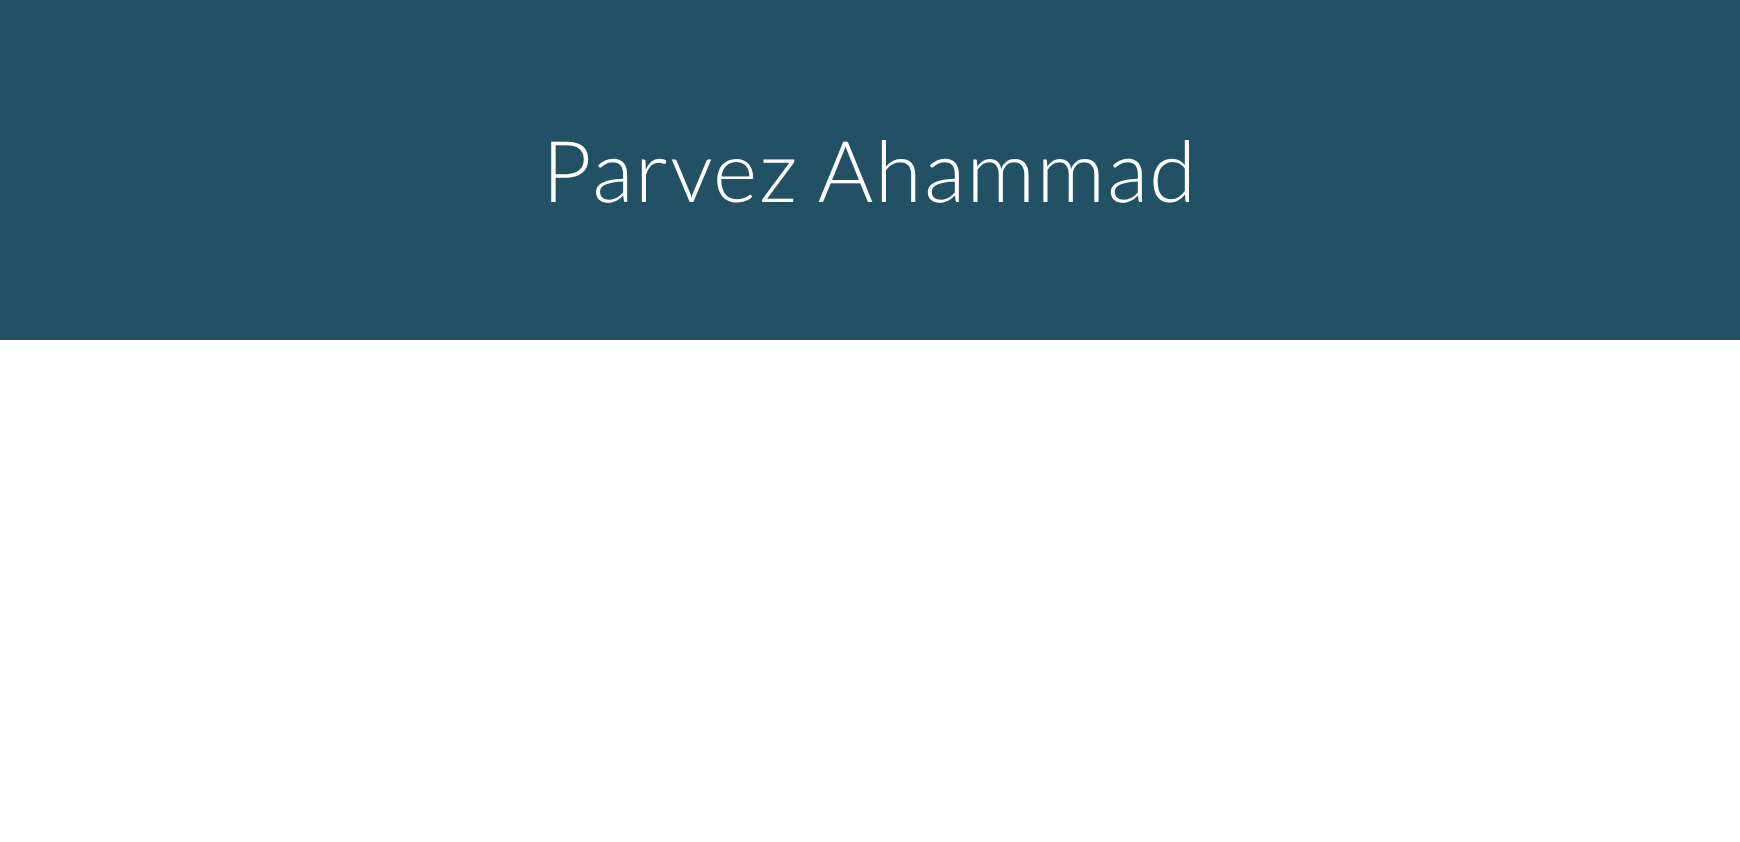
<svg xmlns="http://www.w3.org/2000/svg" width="1740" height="842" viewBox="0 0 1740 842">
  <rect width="100%" height="100%" fill="#ffffff"/>
  <rect x="0" y="0" width="1740" height="340" fill="#225065"/>
  <text x="541" y="202" font-family="Lato" font-size="85.25" font-weight="300" letter-spacing="2" fill="#ffffff">Parvez Ahammad</text>
</svg>
